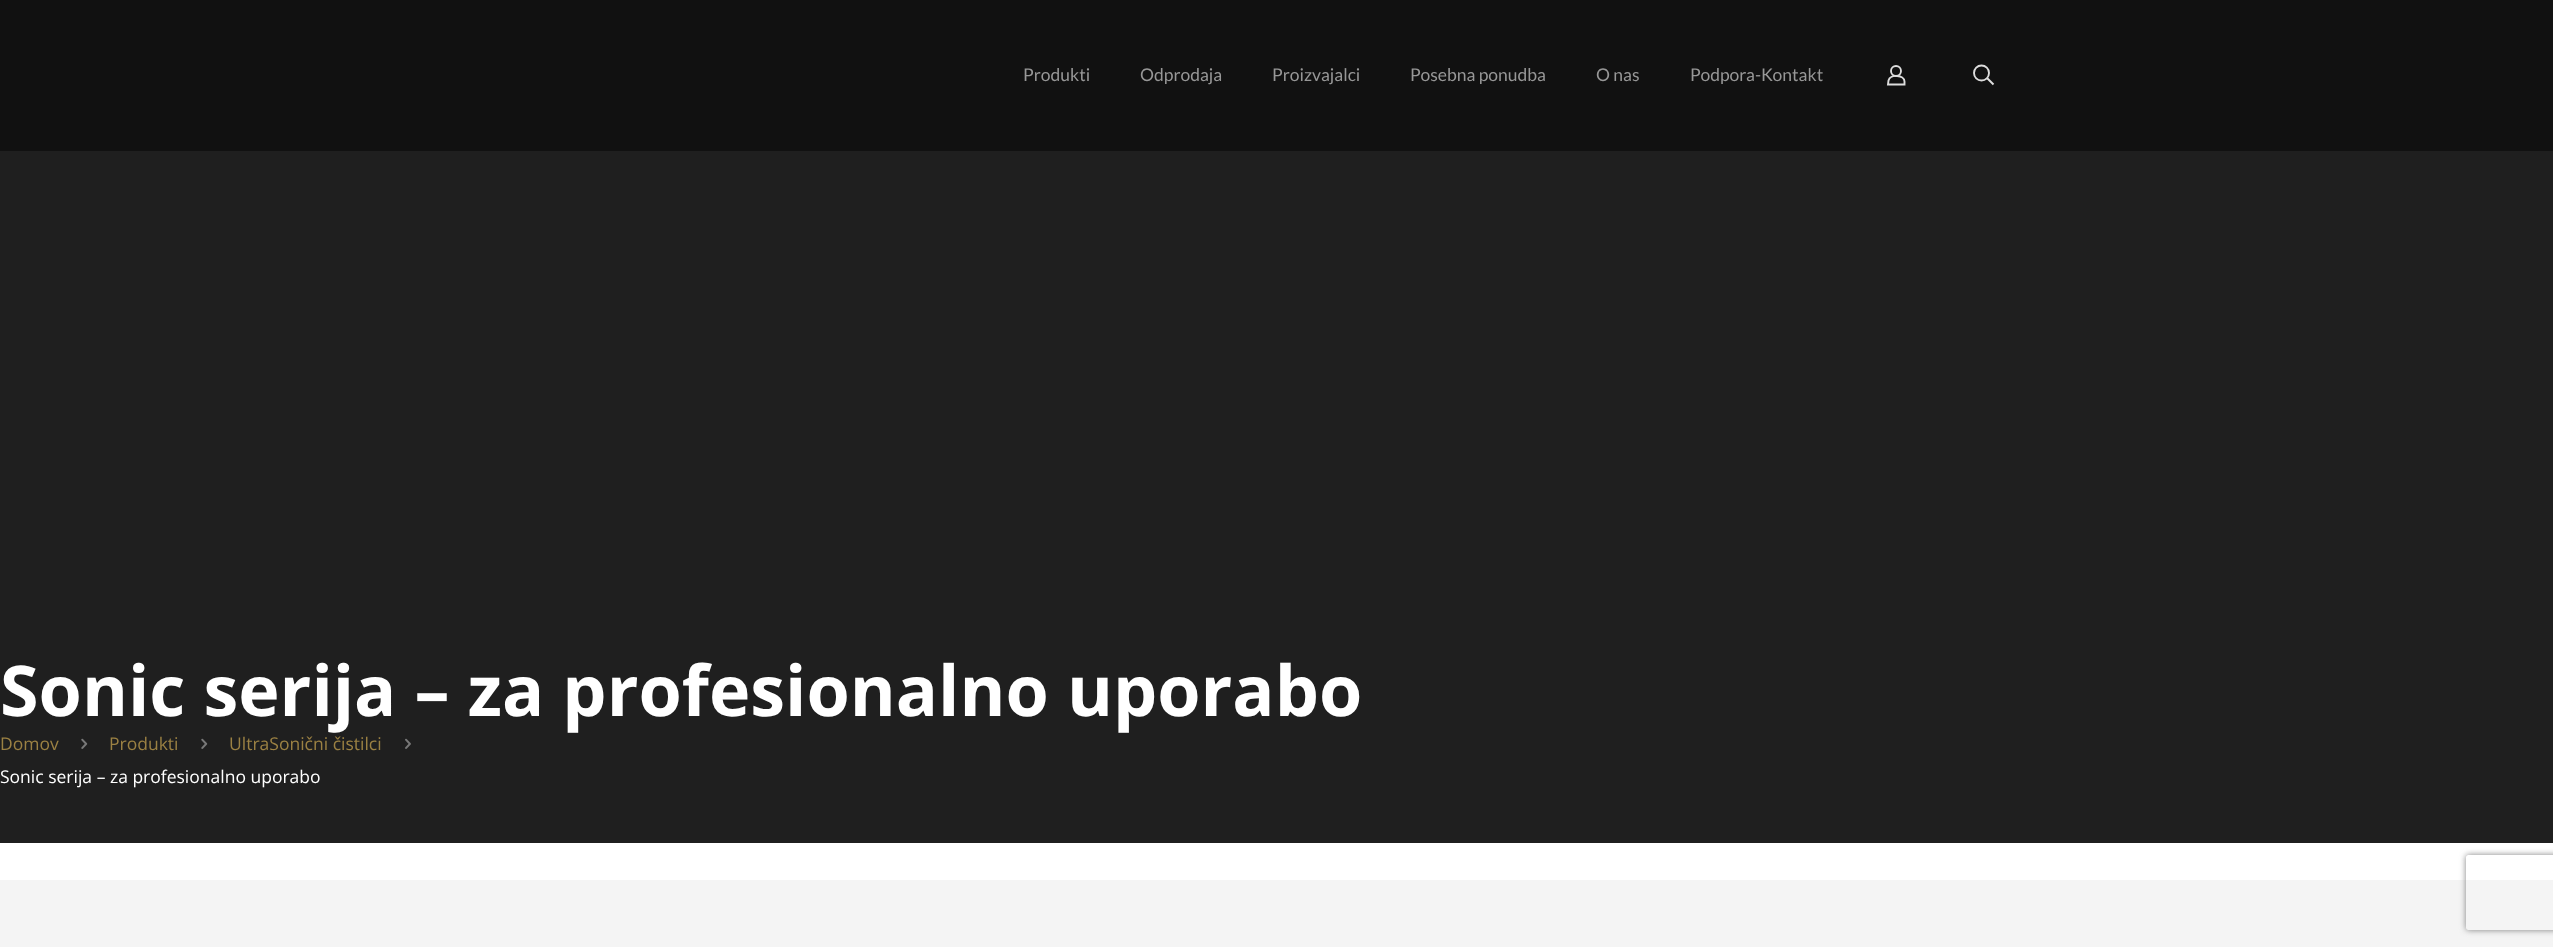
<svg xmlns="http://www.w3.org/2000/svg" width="2553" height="947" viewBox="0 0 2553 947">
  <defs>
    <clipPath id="clip1"><path d="M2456 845H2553V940H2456ZM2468.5 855H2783.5C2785 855 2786 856 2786 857.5V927.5C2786 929 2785 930 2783.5 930H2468.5C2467 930 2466 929 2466 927.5V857.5C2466 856 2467 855 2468.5 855Z" clip-rule="evenodd"/></clipPath>
    <filter id="blur1" x="-50%" y="-200%" width="200%" height="500%"><feGaussianBlur stdDeviation="3"/></filter>
  </defs>
  <rect width="100%" height="100%" fill="#ffffff"/>
  <rect x="0" y="151" width="2553" height="692" fill="#1f1f1f"/>
  <rect x="0" y="0" width="2553" height="151" fill="#111111"/>
  <text x="1023" y="81" font-family="Lato" font-size="17.5" fill="#979797">Produkti</text>
  <text x="1140" y="81" font-family="Lato" font-size="17.5" fill="#979797">Odprodaja</text>
  <text x="1272" y="81" font-family="Lato" font-size="17.5" fill="#979797">Proizvajalci</text>
  <text x="1410" y="81" font-family="Lato" font-size="17.5" fill="#979797">Posebna ponudba</text>
  <text x="1596" y="81" font-family="Lato" font-size="17.5" fill="#979797">O nas</text>
  <text x="1690" y="81" font-family="Lato" font-size="17.5" fill="#979797">Podpora-Kontakt</text>
  <circle cx="1896" cy="71" r="5" fill="none" stroke="#dddddd" stroke-width="1.9"/>
  <path d="M1904.5 81.5V84.5H1888L1888.5 80.5C1890 74 1904.5 74.5 1904.5 81.5Z" fill="none" stroke="#dddddd" stroke-width="1.9"/>
  <circle cx="1981.5" cy="73" r="7.5" fill="none" stroke="#dddddd" stroke-width="1.9"/>
  <path d="M1987 78L1993.5 84.5" fill="none" stroke="#dddddd" stroke-width="1.9"/>
  <text x="0" y="716" font-family="Open Sans" font-size="70" font-weight="bold" fill="#ffffff">Sonic serija – za profesionalno uporabo</text>
  <text x="0" y="750" font-family="Open Sans" font-size="17.5" fill="#9b8143">Domov</text>
  <image x="81" y="738" width="7" height="11" href="img1.png"/>
  <text x="109" y="750" font-family="Open Sans" font-size="17.5" fill="#9b8143">Produkti</text>
  <image x="201" y="738" width="7" height="11" href="img1.png"/>
  <text x="229" y="750" font-family="Open Sans" font-size="17.5" fill="#9b8143">UltraSonični čistilci</text>
  <image x="405" y="738" width="6" height="11" href="img2.png"/>
  <text x="0" y="783" font-family="Open Sans" font-size="17.5" fill="#ffffff">Sonic serija – za profesionalno uporabo</text>
  <rect x="0" y="880" width="2553" height="67" fill="#f4f4f4"/>
  <g clip-path="url(#clip1)">
    <rect x="2466" y="855" width="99" height="75" rx="2.5" fill="#808080" filter="url(#blur1)"/>
  </g>
</svg>
